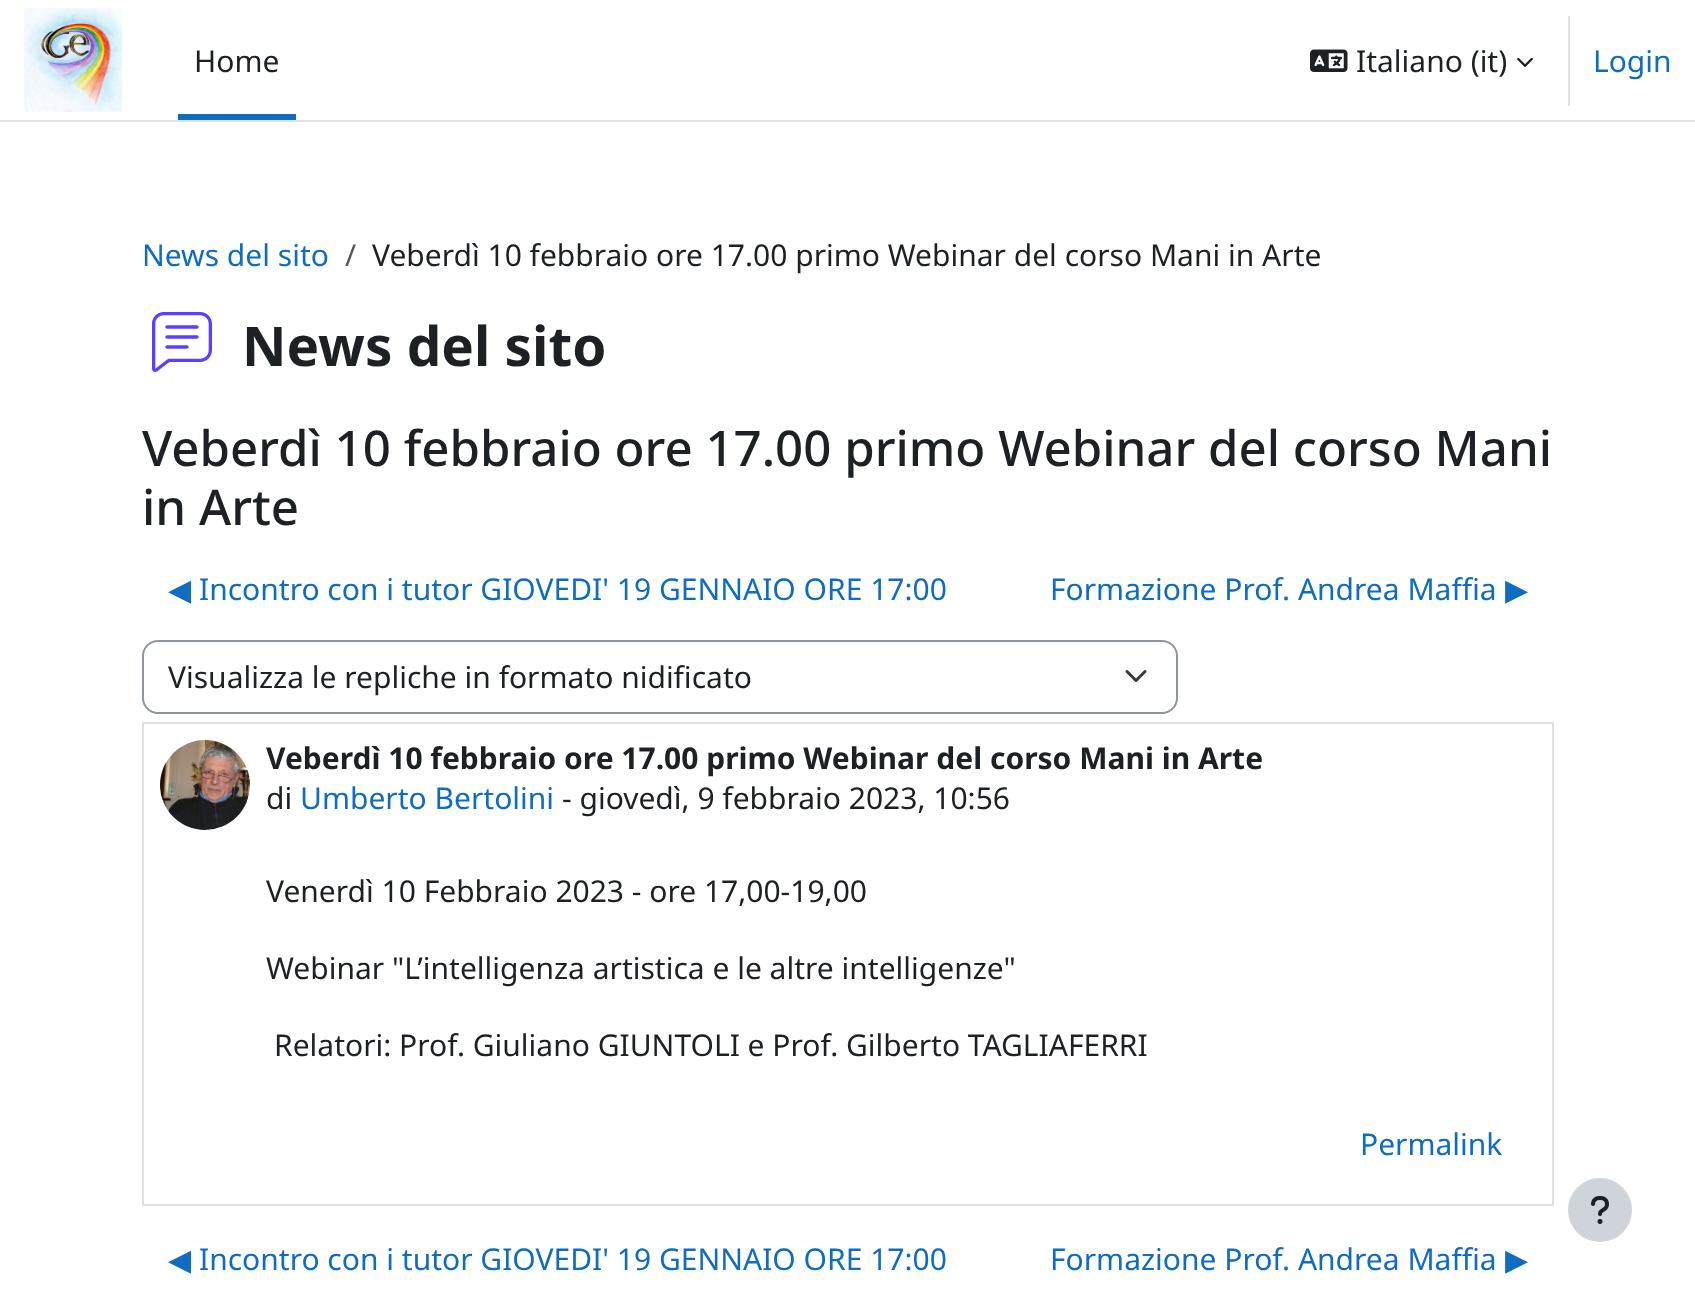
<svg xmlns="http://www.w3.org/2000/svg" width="1695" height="1306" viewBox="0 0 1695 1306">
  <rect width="100%" height="100%" fill="#ffffff"/>
  <rect x="0" y="120" width="1695" height="2" fill="#dee2e6"/>
  <image x="24" y="8" width="99" height="104" href="img1.png"/>
  <rect x="178" y="114" width="118" height="6" fill="#0f6cbf"/>
  <text x="194" y="72" font-family="Noto Sans" font-size="30" fill="#1d2125">Home</text>
  <image x="1310" y="49" width="38" height="23" href="img2.png"/>
  <text x="1356" y="72" font-family="Noto Sans" font-size="30" fill="#1d2125">Italiano (it)</text>
  <image x="1517" y="57" width="16" height="10" href="img3.png"/>
  <rect x="1568" y="16" width="2" height="90" fill="#dee2e6"/>
  <text x="1593" y="72" font-family="Noto Sans" font-size="30" fill="#0f6cbf">Login</text>
  <text x="142" y="266" font-family="Noto Sans" font-size="30" fill="#0f6cbf">News del sito</text>
  <text x="345" y="266" font-family="Noto Sans" font-size="30" fill="#56595c">/</text>
  <text x="372" y="266" font-family="Noto Sans" font-size="30" fill="#1d2125">Veberdì 10 febbraio ore 17.00 primo Webinar del corso Mani in Arte</text>
  <image x="152" y="312" width="60" height="60" href="img4.png"/>
  <text x="242" y="366" font-family="Noto Sans" font-size="54.75" font-weight="bold" fill="#1d2125">News del sito</text>
  <text x="142" y="466" font-family="Noto Sans" font-size="49.2" font-weight="500" fill="#1d2125">Veberdì 10 febbraio ore 17.00 primo Webinar del corso Mani</text>
  <text x="142" y="525" font-family="Noto Sans" font-size="49.2" font-weight="500" fill="#1d2125">in Arte</text>
  <text x="168" y="600" font-family="DejaVu Sans" font-size="30" fill="#0f6cbf">◀︎</text>
  <text x="199" y="600" font-family="Noto Sans" font-size="30" fill="#0f6cbf">Incontro con i tutor GIOVEDI' 19 GENNAIO ORE 17:00</text>
  <text x="1050" y="600" font-family="Noto Sans" font-size="30" fill="#0f6cbf">Formazione Prof. Andrea Maffia</text>
  <text x="1505" y="600" font-family="DejaVu Sans" font-size="30" fill="#0f6cbf">▶︎</text>
  <path d="M1127 671.5L1136 680.5L1145 671.5" fill="none" stroke="#343a40" stroke-width="3" stroke-linecap="round" stroke-linejoin="round"/>
  <rect x="143" y="641" width="1034" height="72" rx="15" fill="none" stroke="#8f959e" stroke-width="2"/>
  <text x="168" y="688" font-family="Noto Sans" font-size="30" fill="#1d2125">Visualizza le repliche in formato nidificato</text>
  <rect x="143" y="723" width="1410" height="482" fill="none" stroke="#dee2e6" stroke-width="2"/>
  <image x="160" y="740" width="90" height="90" href="img5.png"/>
  <text x="266" y="769" font-family="Noto Sans" font-size="30" font-weight="bold" fill="#1d2125">Veberdì 10 febbraio ore 17.00 primo Webinar del corso Mani in Arte</text>
  <text x="266" y="809" font-family="Noto Sans" font-size="30" fill="#1d2125">di</text>
  <text x="300" y="809" font-family="Noto Sans" font-size="30" fill="#0f6cbf">Umberto Bertolini</text>
  <text x="562" y="809" font-family="Noto Sans" font-size="30" fill="#1d2125">- giovedì, 9 febbraio 2023, 10:56</text>
  <text x="266" y="902" font-family="Noto Sans" font-size="30" fill="#1d2125">Venerdì 10 Febbraio 2023 - ore 17,00-19,00</text>
  <text x="266" y="979" font-family="Noto Sans" font-size="30" fill="#1d2125">Webinar "L’intelligenza artistica e le altre intelligenze"</text>
  <text x="274" y="1056" font-family="Noto Sans" font-size="30" fill="#1d2125">Relatori: Prof. Giuliano GIUNTOLI e Prof. Gilberto TAGLIAFERRI</text>
  <text x="1360" y="1155" font-family="Noto Sans" font-size="30" fill="#0f6cbf">Permalink</text>
  <text x="168" y="1270" font-family="DejaVu Sans" font-size="30" fill="#0f6cbf">◀︎</text>
  <text x="199" y="1270" font-family="Noto Sans" font-size="30" fill="#0f6cbf">Incontro con i tutor GIOVEDI' 19 GENNAIO ORE 17:00</text>
  <text x="1050" y="1270" font-family="Noto Sans" font-size="30" fill="#0f6cbf">Formazione Prof. Andrea Maffia</text>
  <text x="1505" y="1270" font-family="DejaVu Sans" font-size="30" fill="#0f6cbf">▶︎</text>
  <circle cx="1600" cy="1210" r="32" fill="#ced4da"/>
  <image x="1591" y="1196" width="18" height="28" href="img6.png"/>
</svg>
